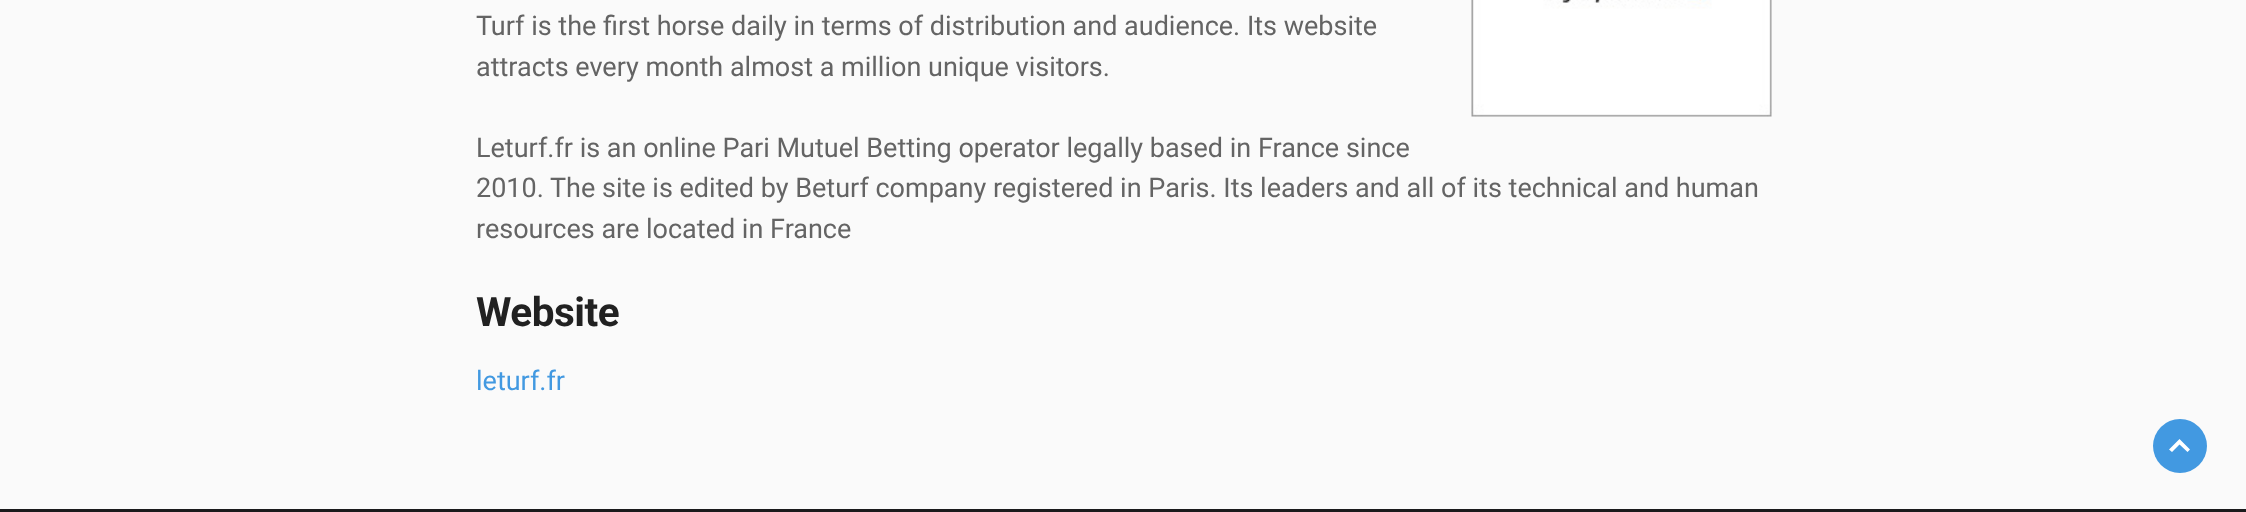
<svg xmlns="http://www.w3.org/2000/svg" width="2246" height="512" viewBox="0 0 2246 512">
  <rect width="100%" height="100%" fill="#fafafa"/>
  <text x="476" y="35" font-family="Roboto" font-size="27" fill="#646464">Turf is the first horse daily in terms of distribution and audience. Its website</text>
  <text x="476" y="76" font-family="Roboto" font-size="27" fill="#646464">attracts every month almost a million unique visitors.</text>
  <image x="1471" y="0" width="301" height="117" href="img1.png"/>
  <text x="476" y="157" font-family="Roboto" font-size="27" fill="#646464">Leturf.fr is an online Pari Mutuel Betting operator legally based in France since</text>
  <text x="476" y="197" font-family="Roboto" font-size="27" fill="#646464">2010. The site is edited by Beturf company registered in Paris. Its leaders and all of its technical and human</text>
  <text x="476" y="238" font-family="Roboto" font-size="27" fill="#646464">resources are located in France</text>
  <text x="476" y="326" font-family="Roboto" font-size="40.5" font-weight="bold" letter-spacing="-0.5" fill="#212121">Website</text>
  <text x="476" y="390" font-family="Roboto" font-size="27" fill="#4299e1">leturf.fr</text>
  <rect x="0" y="509" width="2246" height="3" fill="#1a1a1c"/>
  <circle cx="2180" cy="446" r="27" fill="#4299e1"/>
  <path d="M2190 449.5L2187.5 452L2179.5 444.5L2172 452L2169 449.5L2179.5 439Z" fill="#ffffff"/>
</svg>
